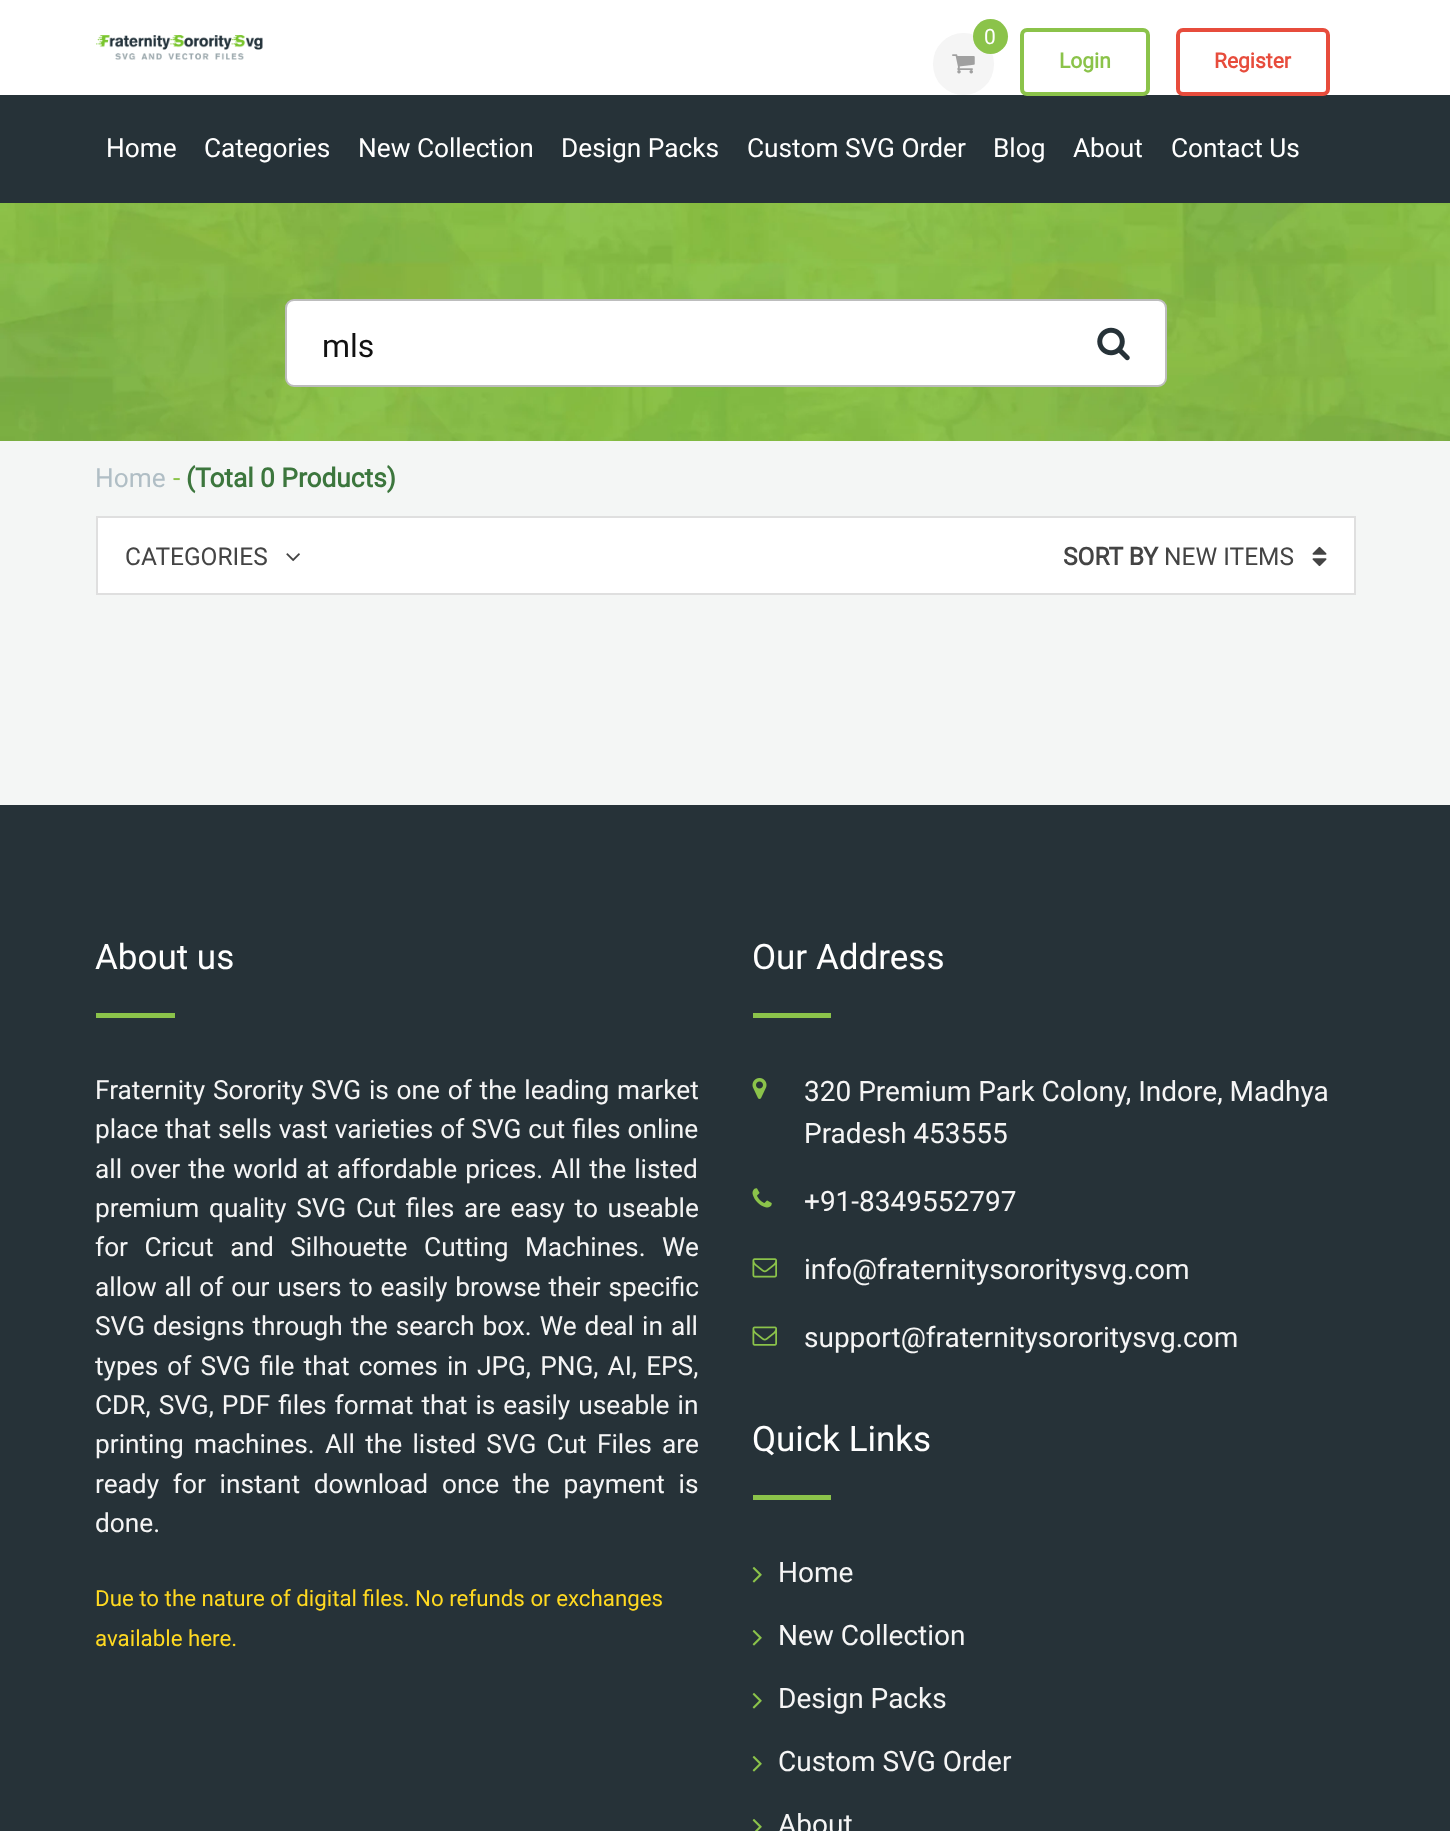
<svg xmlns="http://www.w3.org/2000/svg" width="1450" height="1831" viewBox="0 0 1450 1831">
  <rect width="100%" height="100%" fill="#ffffff"/>
  <image x="96" y="35" width="167" height="25" href="img1.png"/>
  <rect x="933" y="33" width="61" height="62" rx="30.5" fill="#f5f5f5"/>
  <circle cx="990.5" cy="36.5" r="17.5" fill="#8bc34a"/>
  <text x="984" y="44" font-family="Roboto" font-size="21" fill="#ffffff">0</text>
  <image x="952" y="54" width="23" height="20" href="img2.png"/>
  <rect x="0" y="95" width="1450" height="108" fill="#263238"/>
  <rect x="1022" y="30" width="126" height="64" rx="5" fill="none" stroke="#8bc34a" stroke-width="4"/>
  <text x="1059" y="68" font-family="Roboto" font-size="21" font-weight="bold" fill="#8bc34a">Login</text>
  <rect x="1178" y="30" width="150" height="64" rx="5" fill="none" stroke="#e74c3c" stroke-width="4"/>
  <text x="1214" y="68" font-family="Roboto" font-size="21" font-weight="bold" fill="#e74c3c">Register</text>
  <text x="106" y="157" font-family="Roboto" font-size="26.25" fill="#ffffff">Home</text>
  <text x="204" y="157" font-family="Roboto" font-size="26.25" fill="#ffffff">Categories</text>
  <text x="358" y="157" font-family="Roboto" font-size="26.25" fill="#ffffff">New Collection</text>
  <text x="561" y="157" font-family="Roboto" font-size="26.25" fill="#ffffff">Design Packs</text>
  <text x="747" y="157" font-family="Roboto" font-size="26.25" fill="#ffffff">Custom SVG Order</text>
  <text x="993" y="157" font-family="Roboto" font-size="26.25" fill="#ffffff">Blog</text>
  <text x="1073" y="157" font-family="Roboto" font-size="26.25" fill="#ffffff">About</text>
  <text x="1171" y="157" font-family="Roboto" font-size="26.25" fill="#ffffff">Contact Us</text>
  <image x="0" y="203" width="1450" height="238" href="img3.png"/>
  <rect x="286" y="300" width="880" height="86" rx="8" fill="#ffffff" stroke="#bdbdbd" stroke-width="2"/>
  <text x="322" y="357" font-family="Roboto" font-size="32" fill="#111111">mls</text>
  <image x="1097" y="327" width="33" height="34" href="img4.png"/>
  <rect x="0" y="441" width="1450" height="364" fill="#f4f6f5"/>
  <text x="95" y="487" font-family="Roboto" font-size="26.25" fill="#b0bec5">Home</text>
  <text x="173" y="487" font-family="Roboto" font-size="26.25" fill="#8bc34a">-</text>
  <text x="186" y="487" font-family="Roboto" font-size="26.25" font-weight="bold" fill="#3c763d">(Total 0 Products)</text>
  <rect x="97" y="517" width="1258" height="77" fill="#ffffff" stroke="#dfdfdf" stroke-width="2"/>
  <text x="125" y="565" font-family="Roboto" font-size="24.5" fill="#444444">CATEGORIES</text>
  <image x="286" y="553" width="14" height="9" href="img5.png"/>
  <text x="1063" y="565" font-family="Roboto" font-size="24.5" font-weight="bold" fill="#444444">SORT BY</text>
  <text x="1164" y="565" font-family="Roboto" font-size="24.5" fill="#444444">NEW ITEMS</text>
  <image x="1312" y="546" width="15" height="21" href="img6.png"/>
  <rect x="0" y="805" width="1450" height="1026" fill="#263238"/>
  <text x="95" y="969" font-family="Roboto" font-size="35" fill="#ffffff">About us</text>
  <rect x="96" y="1013" width="79" height="5" fill="#8bc34a"/>
  <text x="95" y="1099" word-spacing="1.25" font-family="Roboto" font-size="26.25" fill="#f5f5f5">Fraternity Sorority SVG is one of the leading market</text>
  <text x="95" y="1138" word-spacing="0.5" font-family="Roboto" font-size="26.25" fill="#f5f5f5">place that sells vast varieties of SVG cut files online</text>
  <text x="95" y="1178" word-spacing="1.5" font-family="Roboto" font-size="26.25" fill="#f5f5f5">all over the world at affordable prices. All the listed</text>
  <text x="95" y="1217" word-spacing="3.25" font-family="Roboto" font-size="26.25" fill="#f5f5f5">premium quality SVG Cut files are easy to useable</text>
  <text x="95" y="1256" word-spacing="10" font-family="Roboto" font-size="26.25" fill="#f5f5f5">for Cricut and Silhouette Cutting Machines. We</text>
  <text x="95" y="1296" word-spacing="1.25" font-family="Roboto" font-size="26.25" fill="#f5f5f5">allow all of our users to easily browse their specific</text>
  <text x="95" y="1335" word-spacing="1.5" font-family="Roboto" font-size="26.25" fill="#f5f5f5">SVG designs through the search box. We deal in all</text>
  <text x="95" y="1375" word-spacing="2.6" font-family="Roboto" font-size="26.25" fill="#f5f5f5">types of SVG file that comes in JPG, PNG, AI, EPS,</text>
  <text x="95" y="1414" word-spacing="1.5" font-family="Roboto" font-size="26.25" fill="#f5f5f5">CDR, SVG, PDF files format that is easily useable in</text>
  <text x="95" y="1453" word-spacing="3.75" font-family="Roboto" font-size="26.25" fill="#f5f5f5">printing machines. All the listed SVG Cut Files are</text>
  <text x="95" y="1493" word-spacing="7.25" font-family="Roboto" font-size="26.25" fill="#f5f5f5">ready for instant download once the payment is</text>
  <text x="95" y="1532" font-family="Roboto" font-size="26.25" fill="#f5f5f5">done.</text>
  <text x="95" y="1606" font-family="Roboto" font-size="22.3" fill="#ffd921">Due to the nature of digital files. No refunds or exchanges</text>
  <text x="95" y="1646" font-family="Roboto" font-size="22.3" fill="#ffd921">available here.</text>
  <text x="752" y="969" font-family="Roboto" font-size="35" fill="#ffffff">Our Address</text>
  <rect x="753" y="1013" width="78" height="5" fill="#8bc34a"/>
  <image x="752" y="1078" width="15" height="21" href="img7.png"/>
  <text x="804" y="1101" font-family="Roboto" font-size="28" fill="#f5f5f5">320 Premium Park Colony, Indore, Madhya</text>
  <text x="804" y="1143" font-family="Roboto" font-size="28" fill="#f5f5f5">Pradesh 453555</text>
  <image x="752" y="1188" width="20" height="20" href="img8.png"/>
  <text x="804" y="1211" font-family="Roboto" font-size="28" fill="#f5f5f5">+91-8349552797</text>
  <image x="752" y="1258" width="25" height="20" href="img9.png"/>
  <text x="804" y="1279" font-family="Roboto" font-size="28" fill="#f5f5f5">info@fraternitysororitysvg.com</text>
  <image x="752" y="1326" width="25" height="20" href="img10.png"/>
  <text x="804" y="1347" font-family="Roboto" font-size="28" fill="#f5f5f5">support@fraternitysororitysvg.com</text>
  <text x="752" y="1451" font-family="Roboto" font-size="35" fill="#ffffff">Quick Links</text>
  <rect x="753" y="1495" width="78" height="5" fill="#8bc34a"/>
  <image x="752" y="1567" width="10" height="16" href="img11.png"/>
  <text x="778" y="1582" font-family="Roboto" font-size="28" fill="#f5f5f5">Home</text>
  <image x="752" y="1630" width="10" height="16" href="img11.png"/>
  <text x="778" y="1645" font-family="Roboto" font-size="28" fill="#f5f5f5">New Collection</text>
  <image x="752" y="1693" width="10" height="16" href="img11.png"/>
  <text x="778" y="1708" font-family="Roboto" font-size="28" fill="#f5f5f5">Design Packs</text>
  <image x="752" y="1756" width="10" height="16" href="img11.png"/>
  <text x="778" y="1771" font-family="Roboto" font-size="28" fill="#f5f5f5">Custom SVG Order</text>
  <image x="752" y="1819" width="10" height="12" href="img12.png"/>
  <text x="778" y="1834" font-family="Roboto" font-size="28" fill="#f5f5f5">About</text>
</svg>
